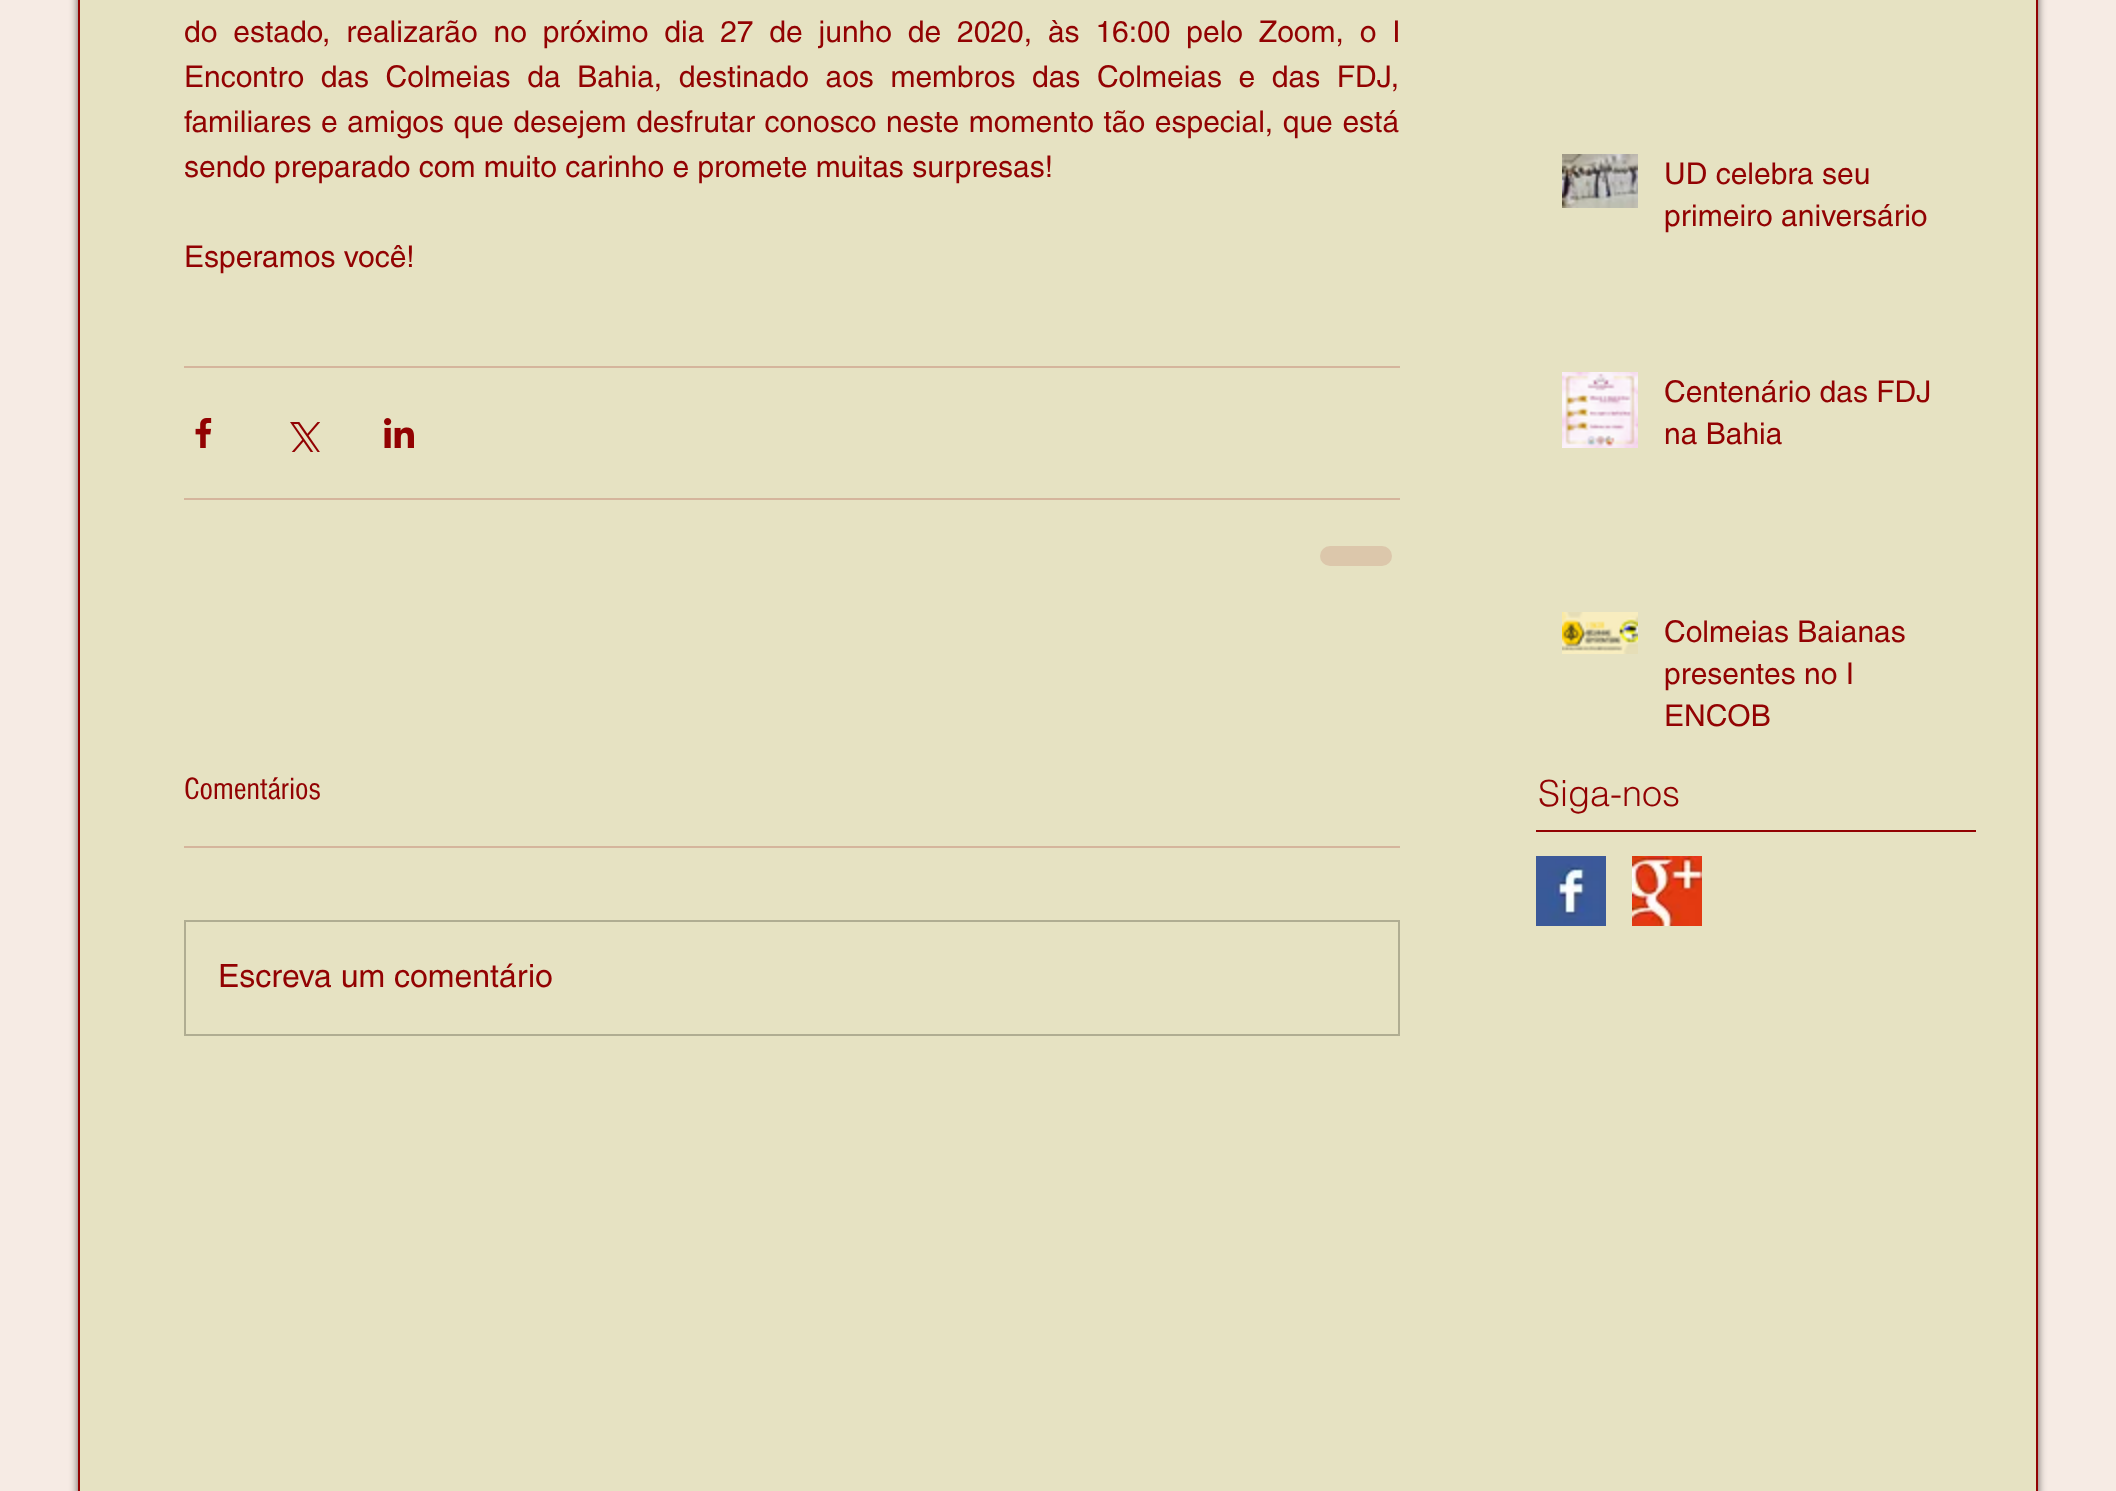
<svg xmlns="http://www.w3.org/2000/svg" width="2116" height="1491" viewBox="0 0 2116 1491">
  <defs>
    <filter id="blur1" x="-50%" y="-200%" width="200%" height="500%"><feGaussianBlur stdDeviation="4"/></filter>
  </defs>
  <rect width="100%" height="100%" fill="#f6ebe4"/>
  <rect x="78" y="-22" width="1960" height="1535" rx="10" fill="#000000" fill-opacity="0.6" filter="url(#blur1)"/>
  <rect x="79" y="-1" width="1958" height="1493" fill="#e6e2c2" stroke="#920202" stroke-width="2"/>
  <text x="184" y="42" word-spacing="7.5" font-family="helvetica" font-size="30" fill="#920202">do estado, realizarão no próximo dia 27 de junho de 2020, às 16:00 pelo Zoom, o I</text>
  <text x="184" y="87" word-spacing="8.25" font-family="helvetica" font-size="30" fill="#920202">Encontro das Colmeias da Bahia, destinado aos membros das Colmeias e das FDJ,</text>
  <text x="184" y="132" word-spacing="1.25" font-family="helvetica" font-size="30" fill="#920202">familiares e amigos que desejem desfrutar conosco neste momento tão especial, que está</text>
  <text x="184" y="177" font-family="helvetica" font-size="30" fill="#920202">sendo preparado com muito carinho e promete muitas surpresas!</text>
  <text x="184" y="267" font-family="helvetica" font-size="30" fill="#920202">Esperamos você!</text>
  <rect x="184" y="366" width="1216" height="2" fill="#d5b59c"/>
  <image x="195" y="418" width="17" height="30" href="img1.png"/>
  <image x="290" y="422" width="30" height="30" href="img2.png"/>
  <image x="384" y="418" width="30" height="30" href="img3.png"/>
  <rect x="184" y="498" width="1216" height="2" fill="#d5b59c"/>
  <rect x="1320" y="546" width="72" height="20" rx="10" fill="#dcc7ab"/>
  <text x="184" y="799" font-family="'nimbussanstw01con'" font-size="32" fill="#920202">Comentários</text>
  <rect x="184" y="846" width="1216" height="2" fill="#d5b59c"/>
  <rect x="185" y="921" width="1214" height="114" fill="none" stroke="#b0ad92" stroke-width="2"/>
  <text x="218" y="987" font-family="helvetica" font-size="32" fill="#920202">Escreva um comentário</text>
  <image x="1562" y="154" width="76" height="54" href="img4.png"/>
  <text x="1664" y="184" font-family="helvetica" font-size="30" fill="#920202">UD celebra seu</text>
  <text x="1664" y="226" font-family="helvetica" font-size="30" fill="#920202">primeiro aniversário</text>
  <image x="1562" y="372" width="76" height="76" href="img5.png"/>
  <text x="1664" y="402" font-family="helvetica" font-size="30" fill="#920202">Centenário das FDJ</text>
  <text x="1664" y="444" font-family="helvetica" font-size="30" fill="#920202">na Bahia</text>
  <image x="1562" y="612" width="76" height="42" href="img6.png"/>
  <text x="1664" y="642" font-family="helvetica" font-size="30" fill="#920202">Colmeias Baianas</text>
  <text x="1664" y="684" font-family="helvetica" font-size="30" fill="#920202">presentes no I</text>
  <text x="1664" y="726" font-family="helvetica" font-size="30" fill="#920202">ENCOB</text>
  <text x="1538" y="806" font-family="helvetica" font-size="36" font-weight="300" fill="#920202">Siga-nos</text>
  <rect x="1536" y="830" width="440" height="2" fill="#920202"/>
  <image x="1536" y="856" width="70" height="70" href="img7.png"/>
  <image x="1632" y="856" width="70" height="70" href="img8.png"/>
</svg>
